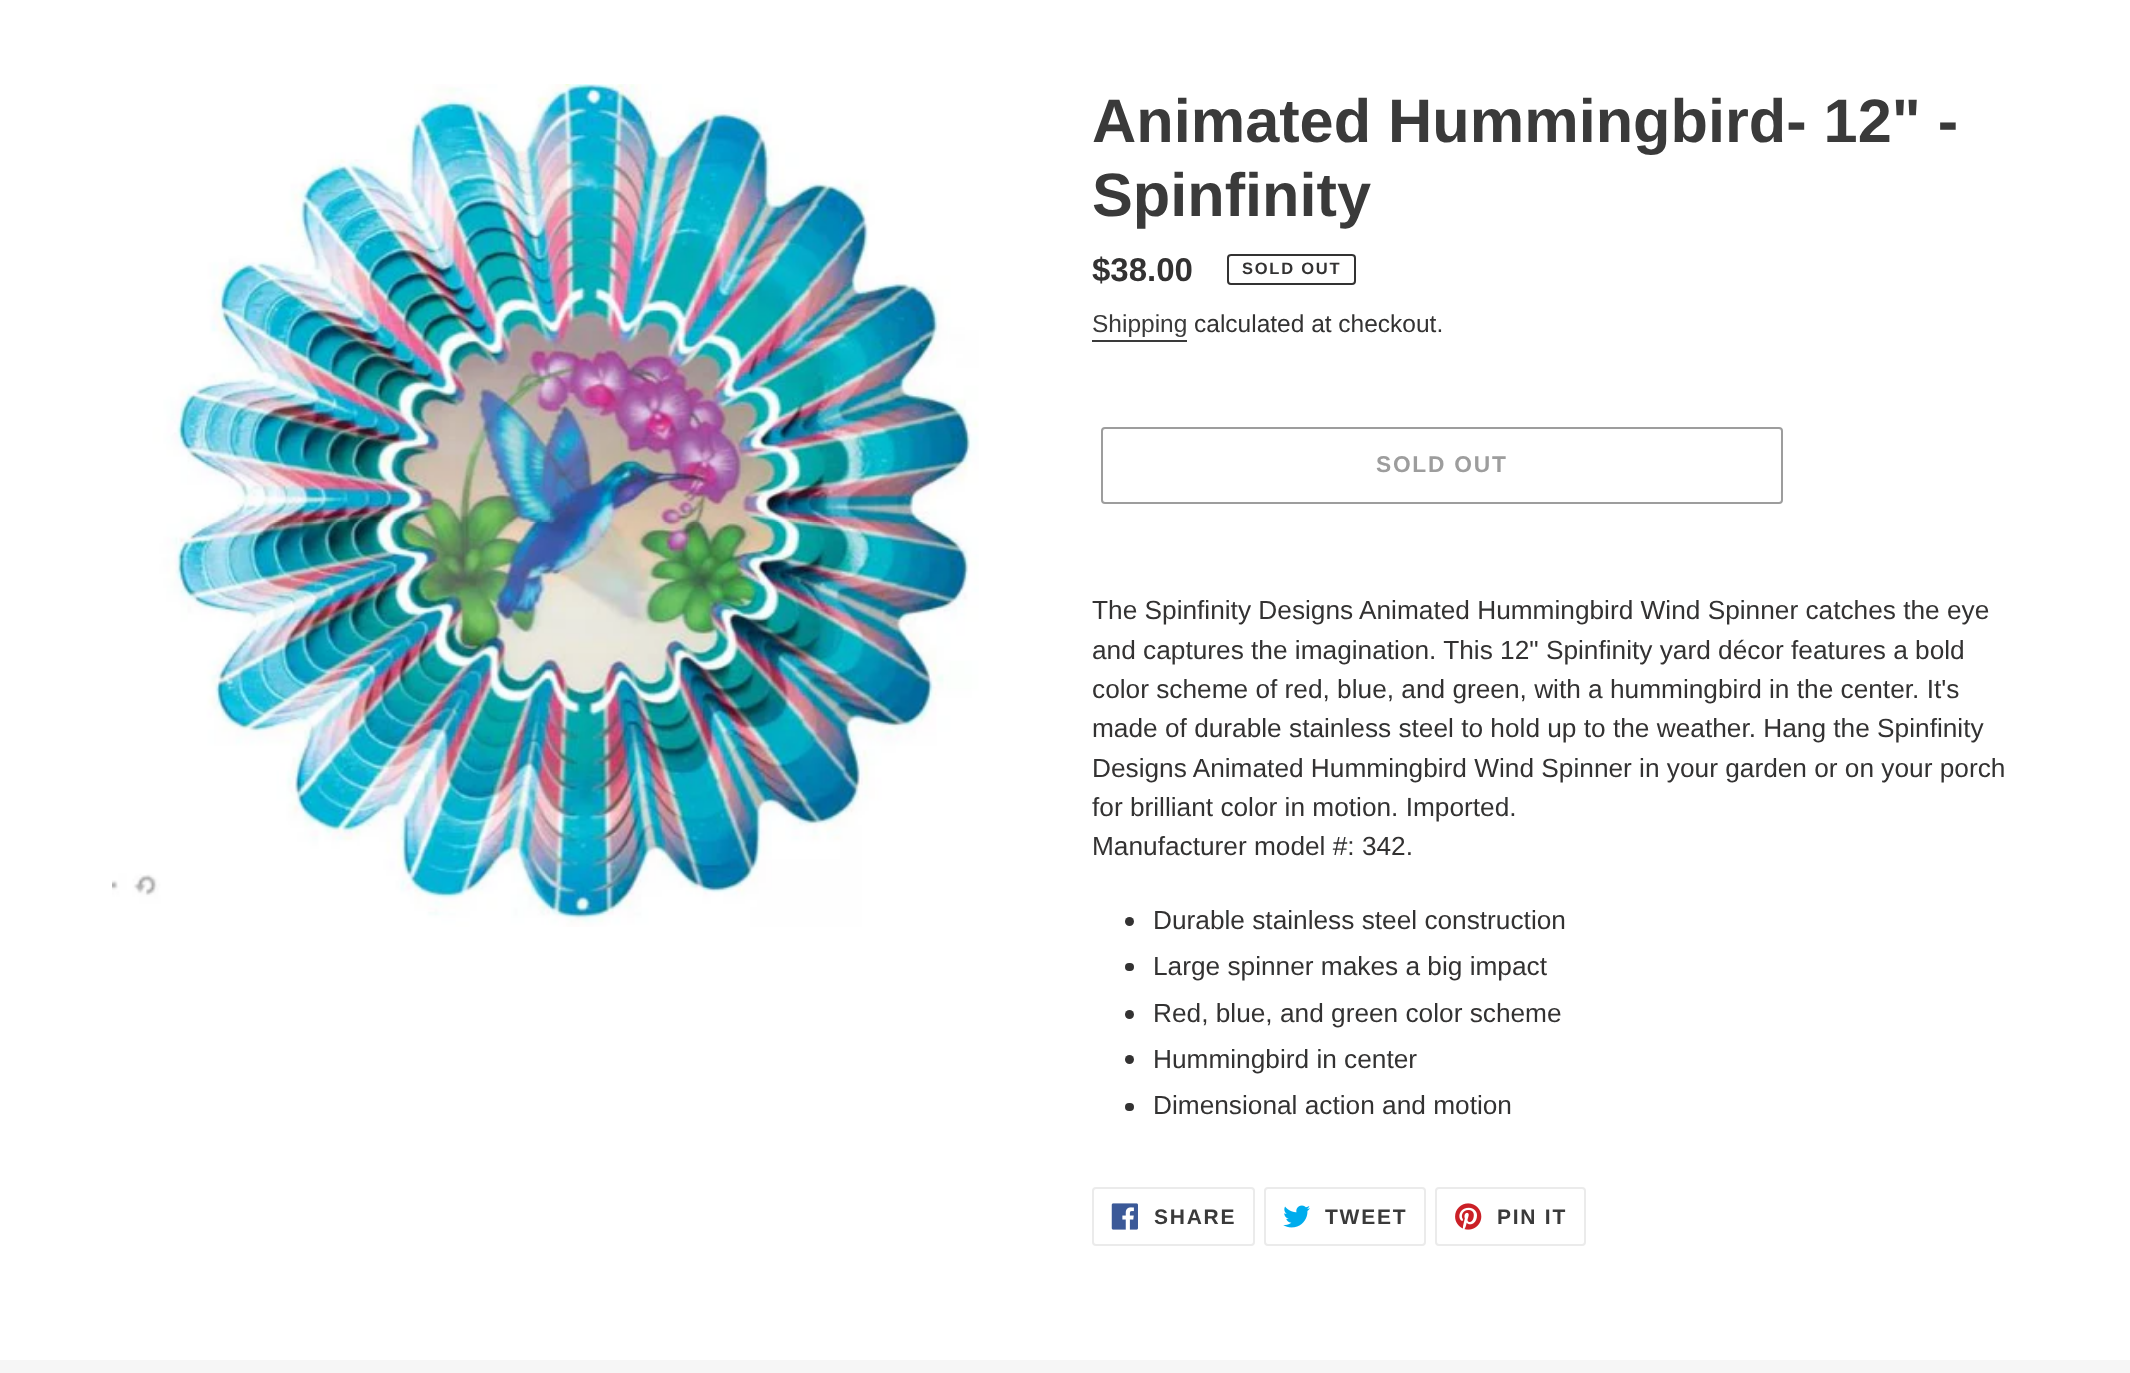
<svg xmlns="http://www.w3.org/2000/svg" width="2130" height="1373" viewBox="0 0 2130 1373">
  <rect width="100%" height="100%" fill="#ffffff"/>
  <image x="112" y="84" width="867" height="843" href="img1.png"/>
  <text x="1092" y="142" font-family="Liberation Sans" font-size="61.25" font-weight="bold" fill="#3a3a3a">Animated Hummingbird- 12" -</text>
  <text x="1092" y="216" font-family="Liberation Sans" font-size="61.25" font-weight="bold" fill="#3a3a3a">Spinfinity</text>
  <text x="1092" y="281" font-family="Liberation Sans" font-size="33" font-weight="bold" fill="#333232">$38.00</text>
  <rect x="1228" y="255" width="127" height="29" rx="3" fill="none" stroke="#333232" stroke-width="2"/>
  <text x="1242" y="274" font-family="Liberation Sans" font-size="16.5" font-weight="bold" letter-spacing="1.75" fill="#333232">SOLD OUT</text>
  <text x="1092" y="332" font-family="Liberation Sans" font-size="24.5" fill="#3a3a3a">Shipping</text>
  <rect x="1092" y="340" width="95" height="2" fill="#3a3a3a"/>
  <text x="1194" y="332" font-family="Liberation Sans" font-size="24.5" fill="#333232">calculated at checkout.</text>
  <rect x="1102" y="428" width="680" height="75" rx="3" fill="none" stroke="#9d9d9d" stroke-width="2"/>
  <text x="1376" y="472" font-family="Liberation Sans" font-size="22.75" font-weight="bold" letter-spacing="1.75" fill="#9d9d9d">SOLD OUT</text>
  <text x="1092" y="619" font-family="Liberation Sans" font-size="26.25" fill="#333232">The Spinfinity Designs Animated Hummingbird Wind Spinner catches the eye</text>
  <text x="1092" y="659" font-family="Liberation Sans" font-size="26.25" fill="#333232">and captures the imagination. This 12" Spinfinity yard décor features a bold</text>
  <text x="1092" y="698" font-family="Liberation Sans" font-size="26.25" fill="#333232">color scheme of red, blue, and green, with a hummingbird in the center. It's</text>
  <text x="1092" y="737" font-family="Liberation Sans" font-size="26.25" fill="#333232">made of durable stainless steel to hold up to the weather. Hang the Spinfinity</text>
  <text x="1092" y="777" font-family="Liberation Sans" font-size="26.25" fill="#333232">Designs Animated Hummingbird Wind Spinner in your garden or on your porch</text>
  <text x="1092" y="816" font-family="Liberation Sans" font-size="26.25" fill="#333232">for brilliant color in motion. Imported.</text>
  <text x="1092" y="855" font-family="Liberation Sans" font-size="26.25" fill="#333232">Manufacturer model #: 342.</text>
  <circle cx="1129.5" cy="921.5" r="4.5" fill="#333232"/>
  <text x="1153" y="929" font-family="Liberation Sans" font-size="26.25" fill="#333232">Durable stainless steel construction</text>
  <rect x="1125" y="963" width="9" height="8" rx="4" fill="#333232"/>
  <text x="1153" y="975" font-family="Liberation Sans" font-size="26.25" fill="#333232">Large spinner makes a big impact</text>
  <circle cx="1129.5" cy="1014.5" r="4.5" fill="#333232"/>
  <text x="1153" y="1022" font-family="Liberation Sans" font-size="26.25" fill="#333232">Red, blue, and green color scheme</text>
  <circle cx="1129.5" cy="1059.5" r="4.5" fill="#333232"/>
  <text x="1153" y="1068" font-family="Liberation Sans" font-size="26.25" fill="#333232">Hummingbird in center</text>
  <rect x="1125" y="1103" width="9" height="8" rx="4" fill="#333232"/>
  <text x="1153" y="1114" font-family="Liberation Sans" font-size="26.25" fill="#333232">Dimensional action and motion</text>
  <rect x="1093" y="1188" width="161" height="57" rx="3" fill="none" stroke="#ebebeb" stroke-width="2"/>
  <image x="1111" y="1203" width="27" height="27" href="img2.png"/>
  <text x="1154" y="1224" font-family="Liberation Sans" font-size="21" font-weight="bold" letter-spacing="1.75" fill="#3a3a3a">SHARE</text>
  <rect x="1265" y="1188" width="160" height="57" rx="3" fill="none" stroke="#ebebeb" stroke-width="2"/>
  <image x="1283" y="1205" width="27" height="23" href="img3.png"/>
  <text x="1325" y="1224" font-family="Liberation Sans" font-size="21" font-weight="bold" letter-spacing="1.75" fill="#3a3a3a">TWEET</text>
  <rect x="1436" y="1188" width="149" height="57" rx="3" fill="none" stroke="#ebebeb" stroke-width="2"/>
  <image x="1455" y="1203" width="27" height="27" href="img4.png"/>
  <text x="1497" y="1224" font-family="Liberation Sans" font-size="21" font-weight="bold" letter-spacing="1.75" fill="#3a3a3a">PIN IT</text>
  <rect x="0" y="1360" width="2130" height="13" fill="#f6f6f6"/>
</svg>
